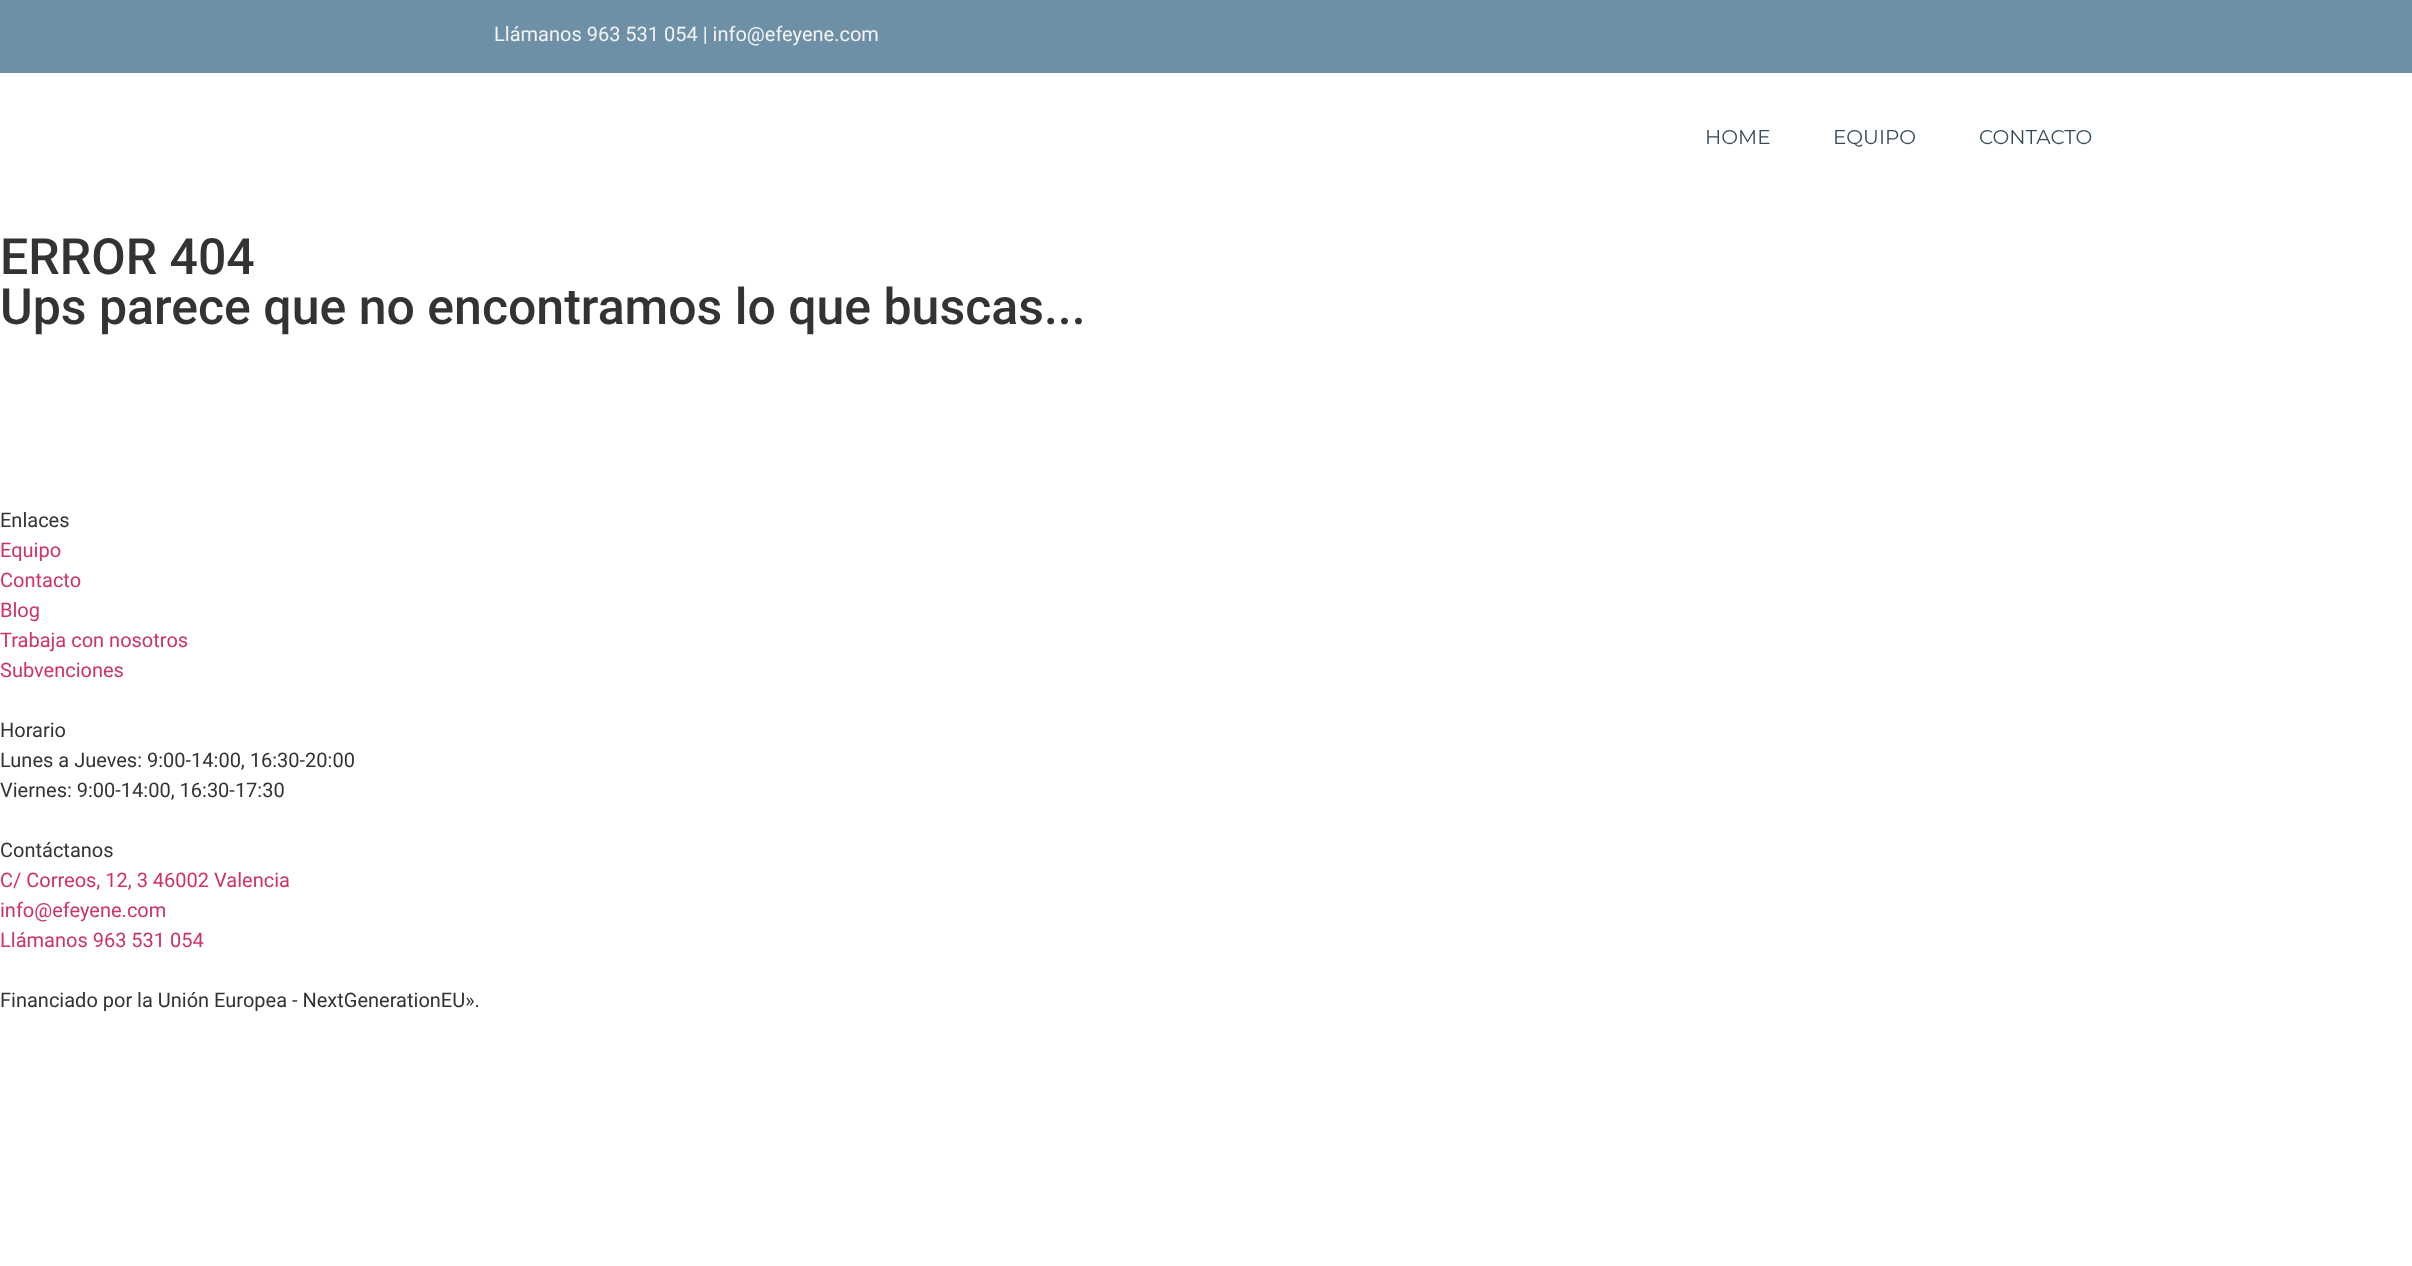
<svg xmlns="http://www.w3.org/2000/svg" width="2412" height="1266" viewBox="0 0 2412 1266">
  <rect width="100%" height="100%" fill="#ffffff"/>
  <rect x="0" y="0" width="2412" height="73" fill="#6e90a6"/>
  <text x="494" y="41" font-family="Roboto" font-size="20" fill="#f3f3f3">Llámanos 963 531 054 | info@efeyene.com</text>
  <text x="1705" y="144" font-family="Montserrat" font-size="20" fill="#374c5a">HOME</text>
  <text x="1833" y="144" font-family="Montserrat" font-size="20" fill="#374c5a">EQUIPO</text>
  <text x="1979" y="144" font-family="Montserrat" font-size="20" fill="#374c5a">CONTACTO</text>
  <text x="0" y="274" font-family="Roboto" font-size="50" font-weight="500" fill="#333333">ERROR 404</text>
  <text x="0" y="324" font-family="Roboto" font-size="50" font-weight="500" fill="#333333">Ups parece que no encontramos lo que buscas...</text>
  <text x="0" y="527" font-family="Roboto" font-size="20" fill="#333333">Enlaces</text>
  <text x="0" y="557" font-family="Roboto" font-size="20" fill="#cc3366">Equipo</text>
  <text x="0" y="587" font-family="Roboto" font-size="20" fill="#cc3366">Contacto</text>
  <text x="0" y="617" font-family="Roboto" font-size="20" fill="#cc3366">Blog</text>
  <text x="0" y="647" font-family="Roboto" font-size="20" fill="#cc3366">Trabaja con nosotros</text>
  <text x="0" y="677" font-family="Roboto" font-size="20" fill="#cc3366">Subvenciones</text>
  <text x="0" y="737" font-family="Roboto" font-size="20" fill="#333333">Horario</text>
  <text x="0" y="767" font-family="Roboto" font-size="20" fill="#333333">Lunes a Jueves: 9:00-14:00, 16:30-20:00</text>
  <text x="0" y="797" font-family="Roboto" font-size="20" fill="#333333">Viernes: 9:00-14:00, 16:30-17:30</text>
  <text x="0" y="857" font-family="Roboto" font-size="20" fill="#333333">Contáctanos</text>
  <text x="0" y="887" font-family="Roboto" font-size="20" fill="#cc3366">C/ Correos, 12, 3 46002 Valencia</text>
  <text x="0" y="917" font-family="Roboto" font-size="20" fill="#cc3366">info@efeyene.com</text>
  <text x="0" y="947" font-family="Roboto" font-size="20" fill="#cc3366">Llámanos 963 531 054</text>
  <text x="0" y="1007" font-family="Roboto" font-size="20" fill="#333333">Financiado por la Unión Europea - NextGenerationEU».</text>
</svg>
